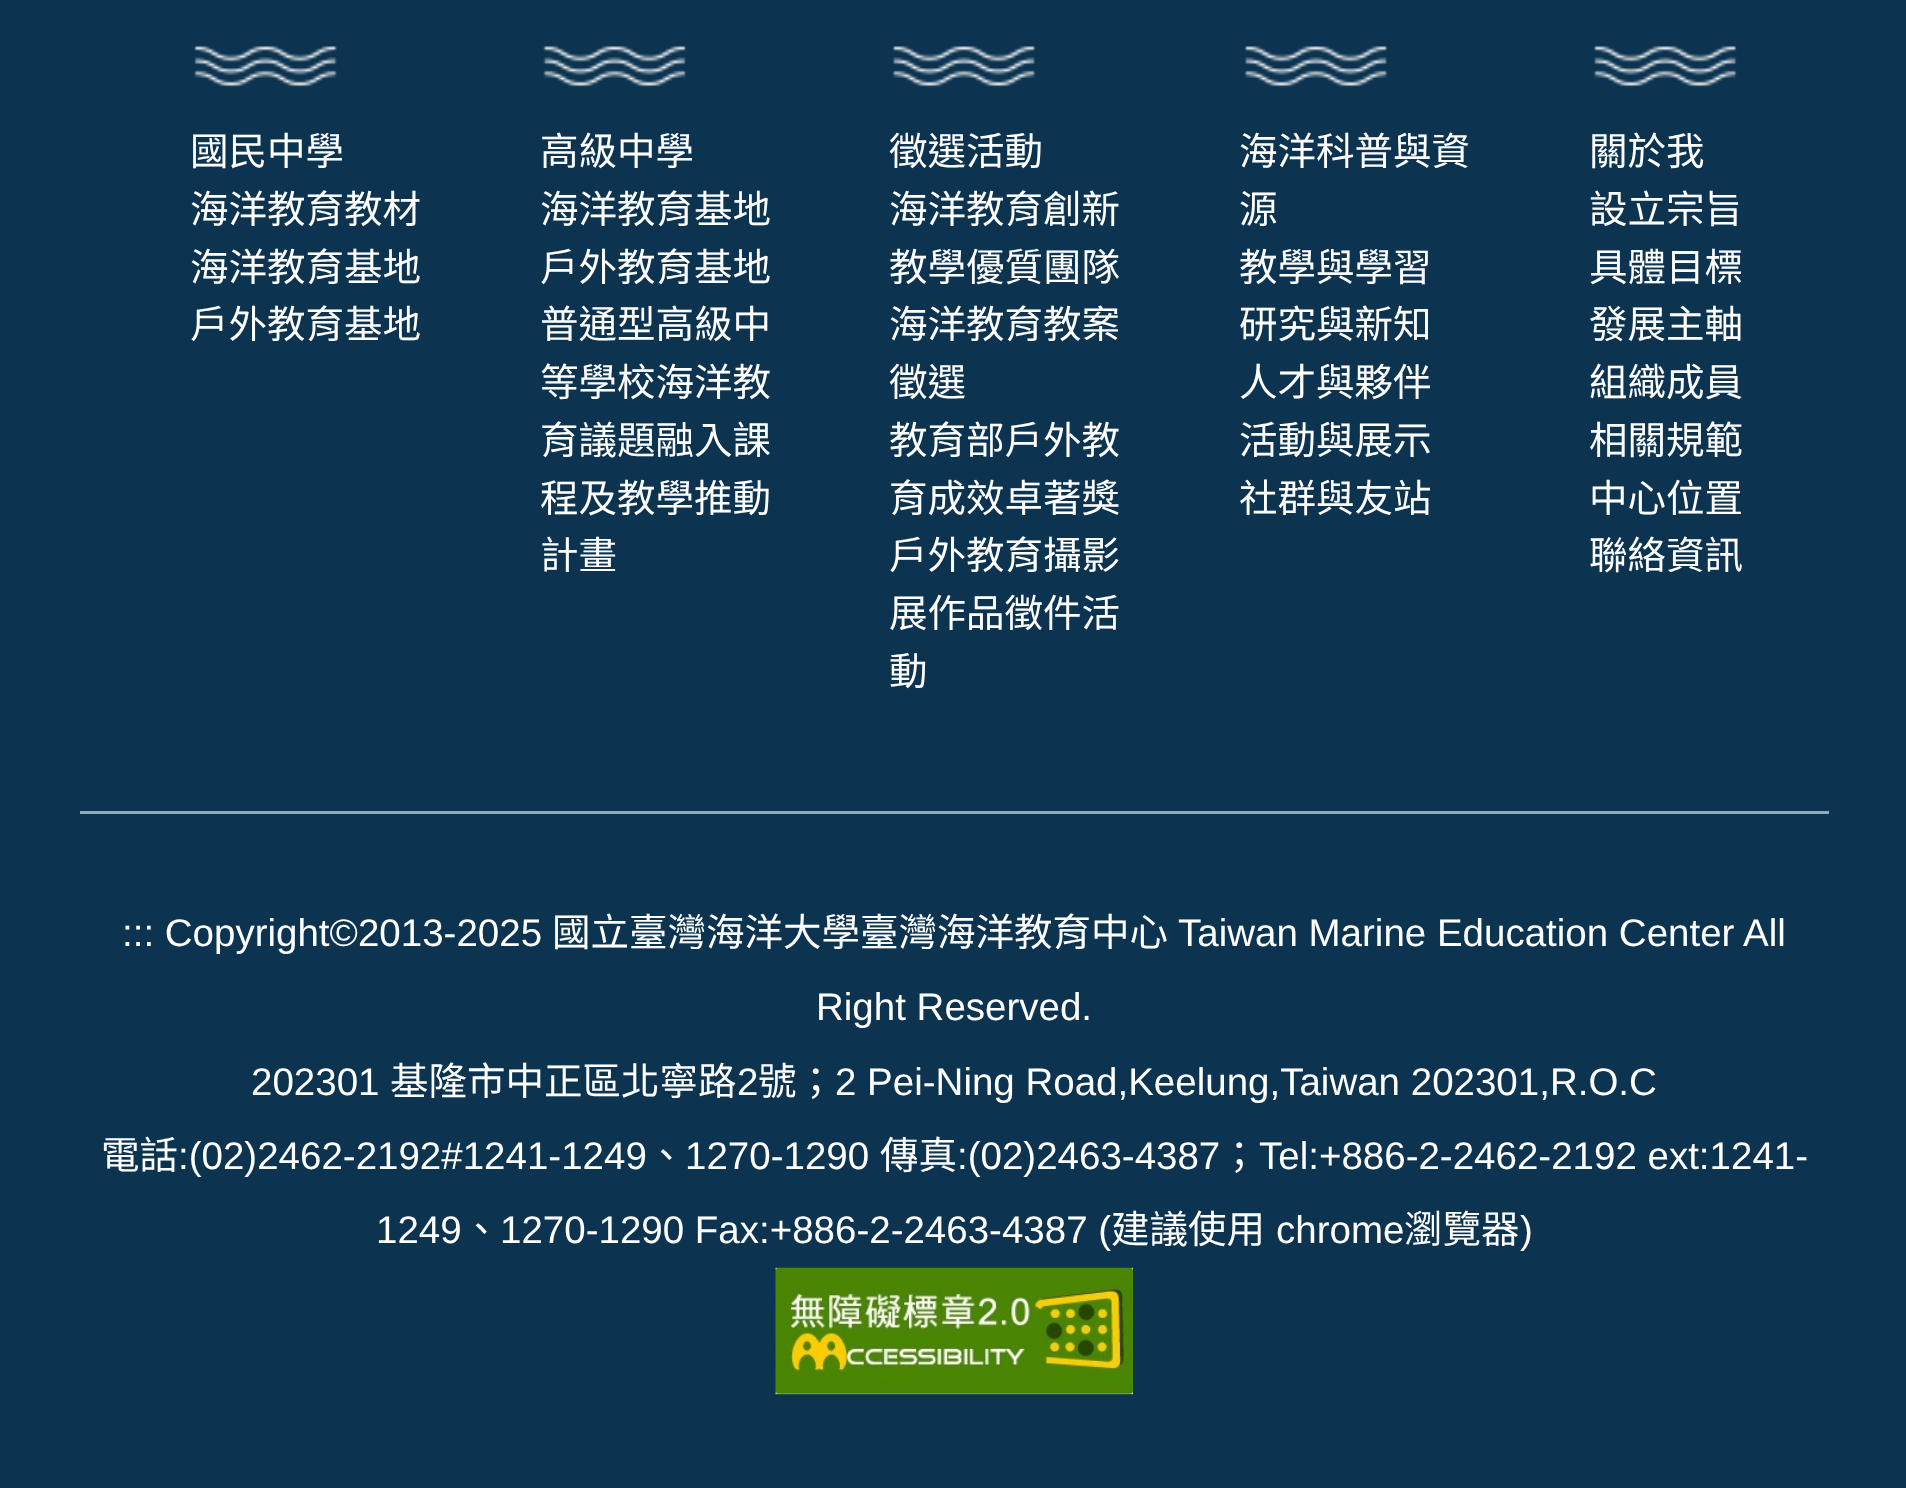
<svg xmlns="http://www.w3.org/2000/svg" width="1906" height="1488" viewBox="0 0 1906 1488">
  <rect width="100%" height="100%" fill="#0c3350"/>
  <image x="194" y="46" width="143" height="41" href="img1.png"/>
  <text x="190" y="165" font-family="Noto Sans CJK TC" font-size="38.5" fill="#ffffff">國民中學</text>
  <text x="190" y="223" font-family="Noto Sans CJK TC" font-size="38.5" fill="#ffffff">海洋教育教材</text>
  <text x="190" y="281" font-family="Noto Sans CJK TC" font-size="38.5" fill="#ffffff">海洋教育基地</text>
  <text x="190" y="338" font-family="Noto Sans CJK TC" font-size="38.5" fill="#ffffff">戶外教育基地</text>
  <image x="543" y="46" width="143" height="41" href="img2.png"/>
  <text x="540" y="165" font-family="Noto Sans CJK TC" font-size="38.5" fill="#ffffff">高級中學</text>
  <text x="540" y="223" font-family="Noto Sans CJK TC" font-size="38.5" fill="#ffffff">海洋教育基地</text>
  <text x="540" y="281" font-family="Noto Sans CJK TC" font-size="38.5" fill="#ffffff">戶外教育基地</text>
  <text x="540" y="338" font-family="Noto Sans CJK TC" font-size="38.5" fill="#ffffff">普通型高級中</text>
  <text x="540" y="396" font-family="Noto Sans CJK TC" font-size="38.5" fill="#ffffff">等學校海洋教</text>
  <text x="540" y="454" font-family="Noto Sans CJK TC" font-size="38.5" fill="#ffffff">育議題融入課</text>
  <text x="540" y="512" font-family="Noto Sans CJK TC" font-size="38.5" fill="#ffffff">程及教學推動</text>
  <text x="540" y="569" font-family="Noto Sans CJK TC" font-size="38.5" fill="#ffffff">計畫</text>
  <image x="893" y="46" width="142" height="41" href="img3.png"/>
  <text x="889" y="165" font-family="Noto Sans CJK TC" font-size="38.5" fill="#ffffff">徵選活動</text>
  <text x="889" y="223" font-family="Noto Sans CJK TC" font-size="38.5" fill="#ffffff">海洋教育創新</text>
  <text x="889" y="281" font-family="Noto Sans CJK TC" font-size="38.5" fill="#ffffff">教學優質團隊</text>
  <text x="889" y="338" font-family="Noto Sans CJK TC" font-size="38.5" fill="#ffffff">海洋教育教案</text>
  <text x="889" y="396" font-family="Noto Sans CJK TC" font-size="38.5" fill="#ffffff">徵選</text>
  <text x="889" y="454" font-family="Noto Sans CJK TC" font-size="38.5" fill="#ffffff">教育部戶外教</text>
  <text x="889" y="512" font-family="Noto Sans CJK TC" font-size="38.5" fill="#ffffff">育成效卓著獎</text>
  <text x="889" y="569" font-family="Noto Sans CJK TC" font-size="38.5" fill="#ffffff">戶外教育攝影</text>
  <text x="889" y="627" font-family="Noto Sans CJK TC" font-size="38.5" fill="#ffffff">展作品徵件活</text>
  <text x="889" y="685" font-family="Noto Sans CJK TC" font-size="38.5" fill="#ffffff">動</text>
  <image x="1245" y="46" width="142" height="41" href="img4.png"/>
  <text x="1239" y="165" font-family="Noto Sans CJK TC" font-size="38.5" fill="#ffffff">海洋科普與資</text>
  <text x="1239" y="223" font-family="Noto Sans CJK TC" font-size="38.5" fill="#ffffff">源</text>
  <text x="1239" y="281" font-family="Noto Sans CJK TC" font-size="38.5" fill="#ffffff">教學與學習</text>
  <text x="1239" y="338" font-family="Noto Sans CJK TC" font-size="38.5" fill="#ffffff">研究與新知</text>
  <text x="1239" y="396" font-family="Noto Sans CJK TC" font-size="38.5" fill="#ffffff">人才與夥伴</text>
  <text x="1239" y="454" font-family="Noto Sans CJK TC" font-size="38.5" fill="#ffffff">活動與展示</text>
  <text x="1239" y="512" font-family="Noto Sans CJK TC" font-size="38.5" fill="#ffffff">社群與友站</text>
  <image x="1594" y="46" width="143" height="41" href="img5.png"/>
  <text x="1589" y="165" font-family="Noto Sans CJK TC" font-size="38.5" fill="#ffffff">關於我</text>
  <text x="1589" y="223" font-family="Noto Sans CJK TC" font-size="38.5" fill="#ffffff">設立宗旨</text>
  <text x="1589" y="281" font-family="Noto Sans CJK TC" font-size="38.5" fill="#ffffff">具體目標</text>
  <text x="1589" y="338" font-family="Noto Sans CJK TC" font-size="38.5" fill="#ffffff">發展主軸</text>
  <text x="1589" y="396" font-family="Noto Sans CJK TC" font-size="38.5" fill="#ffffff">組織成員</text>
  <text x="1589" y="454" font-family="Noto Sans CJK TC" font-size="38.5" fill="#ffffff">相關規範</text>
  <text x="1589" y="512" font-family="Noto Sans CJK TC" font-size="38.5" fill="#ffffff">中心位置</text>
  <text x="1589" y="569" font-family="Noto Sans CJK TC" font-size="38.5" fill="#ffffff">聯絡資訊</text>
  <rect x="80" y="811" width="1749" height="3" fill="#8aaabd"/>
  <text x="122" y="946" font-family="Liberation Sans" font-size="38.5" fill="#ffffff">::: Copyright©2013-2025</text>
  <text x="552" y="946" font-family="Noto Sans CJK TC" font-size="38.5" fill="#ffffff">國立臺灣海洋大學臺灣海洋教育中心</text>
  <text x="1178" y="946" font-family="Liberation Sans" font-size="38.5" fill="#ffffff">Taiwan Marine Education Center All</text>
  <text x="816" y="1020" font-family="Liberation Sans" font-size="38.5" fill="#ffffff">Right Reserved.</text>
  <text x="251" y="1095" font-family="Liberation Sans" font-size="38.5" fill="#ffffff">202301</text>
  <text x="390" y="1095" font-family="Noto Sans CJK TC" font-size="38.5" fill="#ffffff">基隆市中正區北寧路</text>
  <text x="737" y="1095" font-family="Liberation Sans" font-size="38.5" fill="#ffffff">2</text>
  <text x="758" y="1095" font-family="Noto Sans CJK TC" font-size="38.5" fill="#ffffff">號；</text>
  <text x="835" y="1095" font-family="Liberation Sans" font-size="38.5" fill="#ffffff">2 Pei-Ning Road,Keelung,Taiwan 202301,R.O.C</text>
  <text x="101" y="1169" font-family="Noto Sans CJK TC" font-size="38.5" fill="#ffffff">電話</text>
  <text x="178" y="1169" font-family="Liberation Sans" font-size="38.5" fill="#ffffff">:(02)2462-2192#1241-1249</text>
  <text x="647" y="1169" font-family="Noto Sans CJK TC" font-size="38.5" fill="#ffffff">、</text>
  <text x="685" y="1169" font-family="Liberation Sans" font-size="38.5" fill="#ffffff">1270-1290</text>
  <text x="880" y="1169" font-family="Noto Sans CJK TC" font-size="38.5" fill="#ffffff">傳真</text>
  <text x="957" y="1169" font-family="Liberation Sans" font-size="38.5" fill="#ffffff">:(02)2463-4387</text>
  <text x="1220" y="1169" font-family="Noto Sans CJK TC" font-size="38.5" fill="#ffffff">；</text>
  <text x="1259" y="1169" font-family="Liberation Sans" font-size="38.5" fill="#ffffff">Tel:+886-2-2462-2192 ext:1241-</text>
  <text x="376" y="1243" font-family="Liberation Sans" font-size="38.5" fill="#ffffff">1249</text>
  <text x="462" y="1243" font-family="Noto Sans CJK TC" font-size="38.5" fill="#ffffff">、</text>
  <text x="500" y="1243" font-family="Liberation Sans" font-size="38.5" fill="#ffffff">1270-1290 Fax:+886-2-2463-4387 (</text>
  <text x="1111" y="1243" font-family="Noto Sans CJK TC" font-size="38.5" fill="#ffffff">建議使用</text>
  <text x="1276" y="1243" font-family="Liberation Sans" font-size="38.5" fill="#ffffff">chrome</text>
  <text x="1404" y="1243" font-family="Noto Sans CJK TC" font-size="38.5" fill="#ffffff">瀏覽器</text>
  <text x="1520" y="1243" font-family="Liberation Sans" font-size="38.5" fill="#ffffff">)</text>
  <image x="775" y="1267" width="358" height="128" href="img6.png"/>
</svg>
